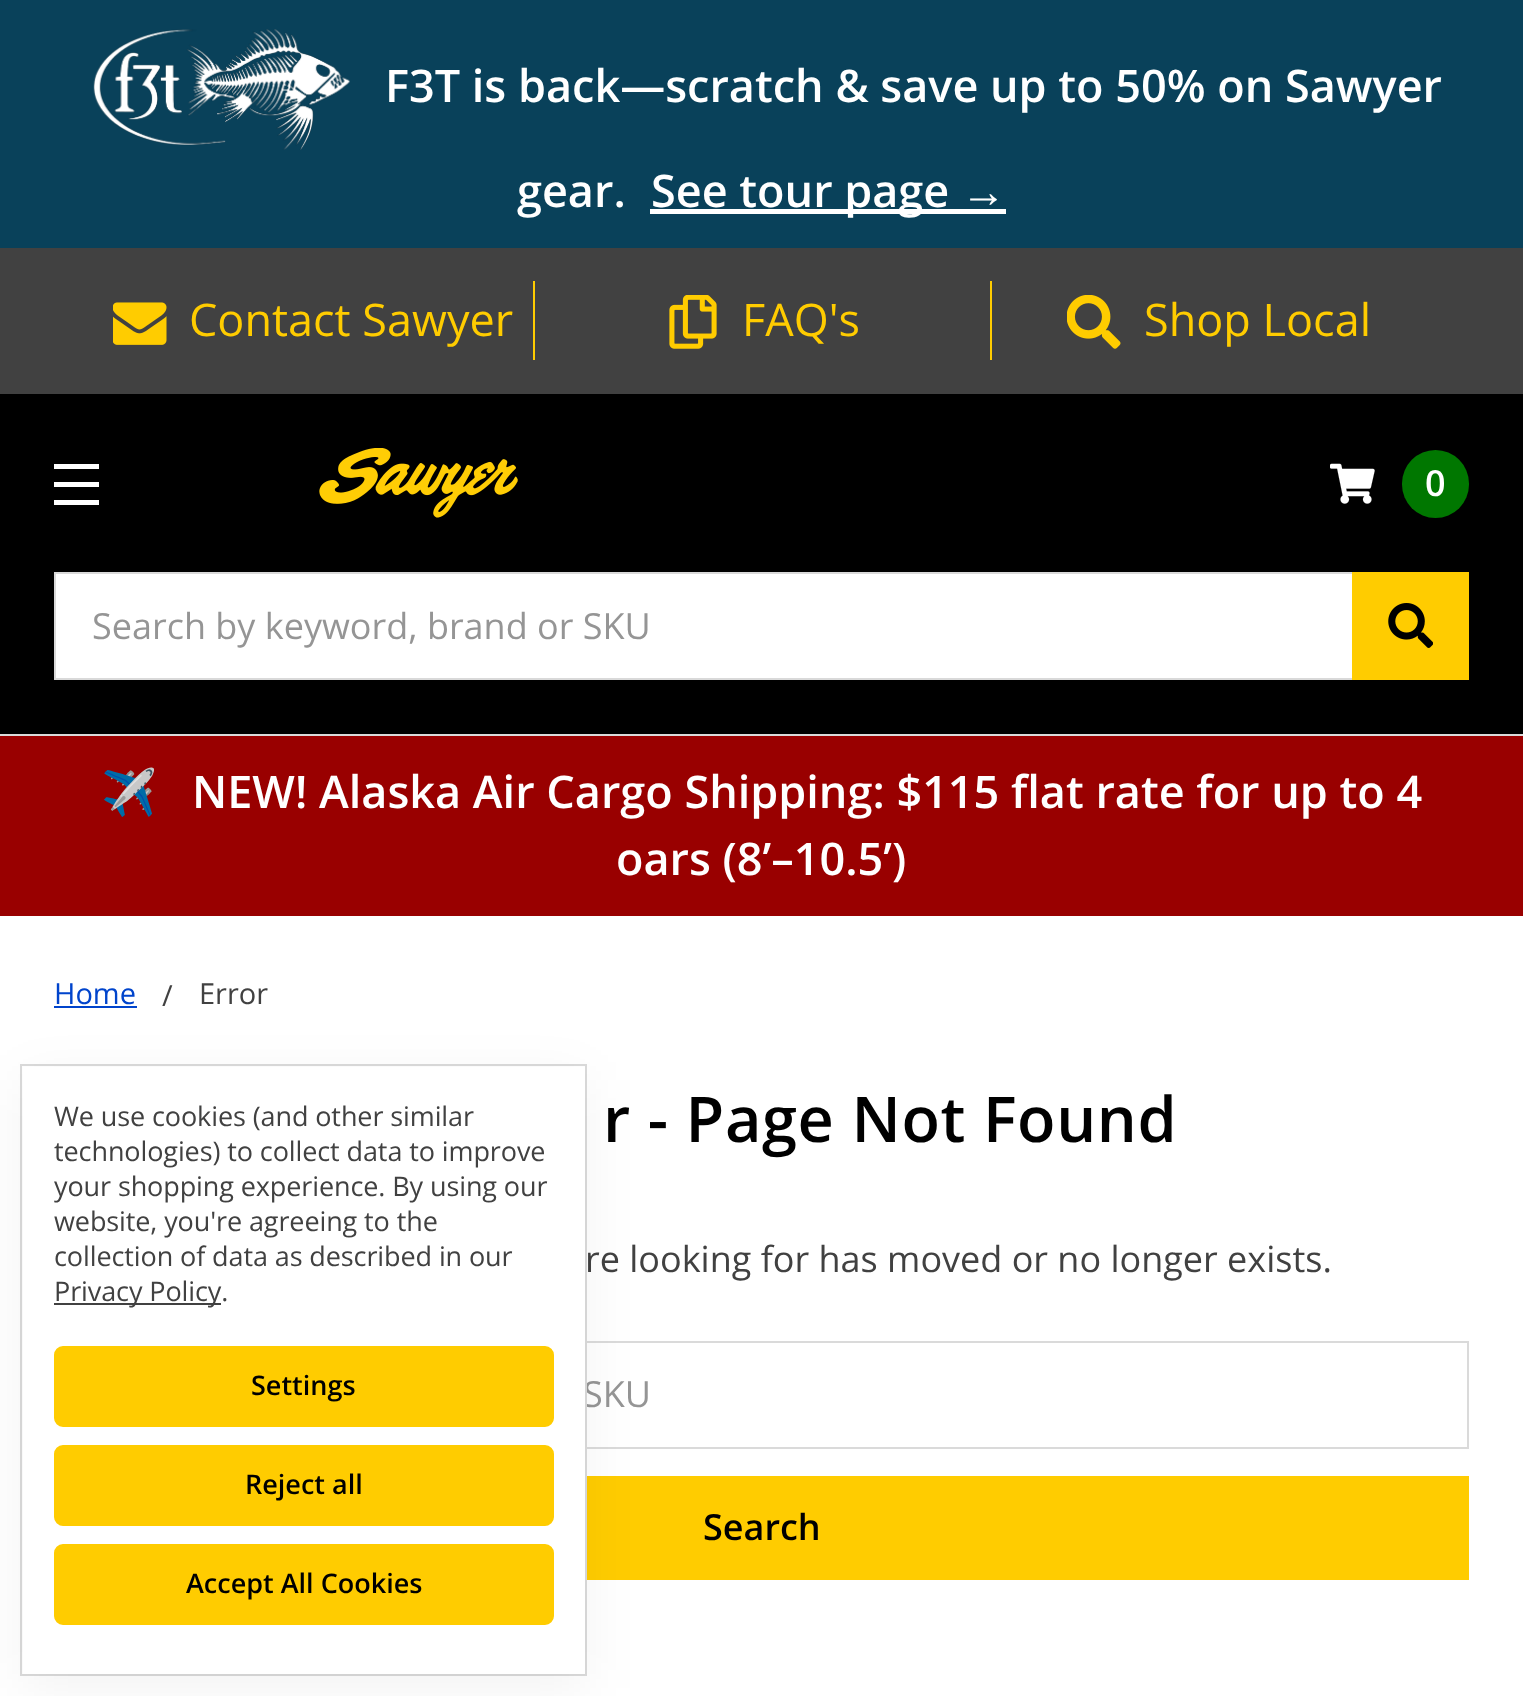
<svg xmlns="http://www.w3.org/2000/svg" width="1523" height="1696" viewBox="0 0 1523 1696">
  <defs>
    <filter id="blur1" x="-50%" y="-200%" width="200%" height="500%"><feGaussianBlur stdDeviation="27"/></filter>
  </defs>
  <rect width="100%" height="100%" fill="#ffffff"/>
  <rect x="0" y="0" width="1523" height="248" fill="#09415a"/>
  <image x="93" y="29" width="257" height="121" href="img1.png"/>
  <text x="385" y="102" font-family="Open Sans" font-size="45" font-weight="600" fill="#ffffff">F3T is back—scratch &amp; save up to 50% on Sawyer</text>
  <text x="517" y="207" font-family="Open Sans" font-size="45" font-weight="600" fill="#ffffff">gear.</text>
  <rect x="650" y="209" width="356" height="5" fill="#ffffff"/>
  <text x="651" y="207" font-family="Open Sans" font-size="45" font-weight="600" fill="#ffffff">See tour page</text>
  <text x="961" y="207" font-family="Liberation Sans" font-size="45" font-weight="bold" fill="#ffffff">→</text>
  <rect x="0" y="248" width="1523" height="146" fill="#414141"/>
  <image x="113" y="302" width="54" height="43" href="img2.png"/>
  <text x="189" y="336" font-family="Open Sans" font-size="45" fill="#ffcc00">Contact Sawyer</text>
  <rect x="533" y="281" width="2" height="79" fill="#ffcc00"/>
  <image x="669" y="295" width="48" height="54" href="img3.png"/>
  <text x="742" y="336" font-family="Open Sans" font-size="45" fill="#ffcc00">FAQ's</text>
  <rect x="990" y="281" width="2" height="79" fill="#ffcc00"/>
  <image x="1067" y="295" width="54" height="54" href="img4.png"/>
  <text x="1144" y="336" font-family="Open Sans" font-size="45" fill="#ffcc00">Shop Local</text>
  <rect x="0" y="394" width="1523" height="340" fill="#000000"/>
  <rect x="0" y="734" width="1523" height="2" fill="#dadada"/>
  <rect x="54" y="482" width="45" height="5" fill="#ffffff"/>
  <rect x="54" y="464" width="45" height="5" fill="#ffffff"/>
  <rect x="54" y="500" width="45" height="5" fill="#ffffff"/>
  <image x="319" y="448" width="199" height="70" href="img5.png"/>
  <image x="1330" y="463" width="45" height="41" href="img6.png"/>
  <rect x="1402" y="450" width="67" height="68" rx="33.5" fill="#007700"/>
  <text x="1425" y="496" font-family="Open Sans" font-size="36" font-weight="600" fill="#ffffff">0</text>
  <rect x="56" y="574" width="1296" height="104" fill="#ffffff"/>
  <rect x="55" y="573" width="1413" height="106" fill="none" stroke="#d9d9d9" stroke-width="2"/>
  <text x="92" y="639" font-family="Open Sans" font-size="36" fill="#959595">Search by keyword, brand or SKU</text>
  <rect x="1352" y="572" width="117" height="108" fill="#ffcc00"/>
  <image x="1388" y="603" width="45" height="45" href="img7.png"/>
  <rect x="0" y="736" width="1523" height="180" fill="#990000"/>
  <text x="101" y="808" font-family="Noto Color Emoji" font-size="45" font-weight="bold" fill="#ffffff">✈️</text>
  <text x="192" y="808" font-family="Open Sans" font-size="45" font-weight="600" fill="#ffffff">NEW! Alaska Air Cargo Shipping: $115 flat rate for up to 4</text>
  <text x="616" y="875" font-family="Open Sans" font-size="45" font-weight="600" fill="#ffffff">oars (8’–10.5’)</text>
  <text x="54" y="1004" font-family="Open Sans" font-size="29" fill="#0044cc">Home</text>
  <rect x="54" y="1006" width="83" height="2" fill="#0044cc"/>
  <text x="162" y="1006" font-family="Open Sans" font-size="29" fill="#414141">/</text>
  <text x="199" y="1004" font-family="Open Sans" font-size="29" fill="#414141">Error</text>
  <text x="603" y="1142" font-family="Open Sans" font-size="63" font-weight="600" letter-spacing="0.6" fill="#000000">r - Page Not Found</text>
  <text x="585" y="1272" font-family="Open Sans" font-size="36" fill="#414141">re looking for has moved or no longer exists.</text>
  <rect x="55" y="1342" width="1413" height="106" fill="none" stroke="#dadada" stroke-width="2"/>
  <text x="583" y="1407" font-family="Open Sans" font-size="36" fill="#959595">SKU</text>
  <rect x="587" y="1476" width="882" height="104" fill="#ffcc00"/>
  <text x="703" y="1540" font-family="Open Sans" font-size="36" font-weight="600" fill="#000000">Search</text>
  <rect x="21" y="1065" width="565" height="610" fill="none" stroke="#dadada" stroke-width="2"/>
  <rect x="23" y="1080" width="562" height="608" fill="#000000" fill-opacity="0.05" filter="url(#blur1)"/>
  <rect x="23" y="1067" width="562" height="607" fill="#ffffff"/>
  <text x="54" y="1126" font-family="Open Sans" font-size="27" letter-spacing="-0.1" fill="#414141">We use cookies (and other similar</text>
  <text x="54" y="1161" font-family="Open Sans" font-size="27" letter-spacing="-0.1" fill="#414141">technologies) to collect data to improve</text>
  <text x="54" y="1196" font-family="Open Sans" font-size="27" letter-spacing="-0.1" fill="#414141">your shopping experience. By using our</text>
  <text x="54" y="1231" font-family="Open Sans" font-size="27" letter-spacing="-0.1" fill="#414141">website, you're agreeing to the</text>
  <text x="54" y="1266" font-family="Open Sans" font-size="27" letter-spacing="-0.1" fill="#414141">collection of data as described in our</text>
  <rect x="54" y="1303" width="167" height="2" fill="#414141"/>
  <text x="54" y="1301" font-family="Open Sans" font-size="27" letter-spacing="-0.1" fill="#414141">Privacy Policy.</text>
  <rect x="55" y="1347" width="498" height="79" rx="8" fill="#ffcc00" stroke="#ffcc00" stroke-width="2"/>
  <text x="251" y="1395" font-family="Open Sans" font-size="27" font-weight="600" fill="#000000">Settings</text>
  <rect x="55" y="1446" width="498" height="79" rx="8" fill="#ffcc00" stroke="#ffcc00" stroke-width="2"/>
  <text x="245" y="1494" font-family="Open Sans" font-size="27" font-weight="600" fill="#000000">Reject all</text>
  <rect x="55" y="1545" width="498" height="79" rx="8" fill="#ffcc00" stroke="#ffcc00" stroke-width="2"/>
  <text x="186" y="1593" font-family="Open Sans" font-size="27" font-weight="600" fill="#000000">Accept All Cookies</text>
</svg>
